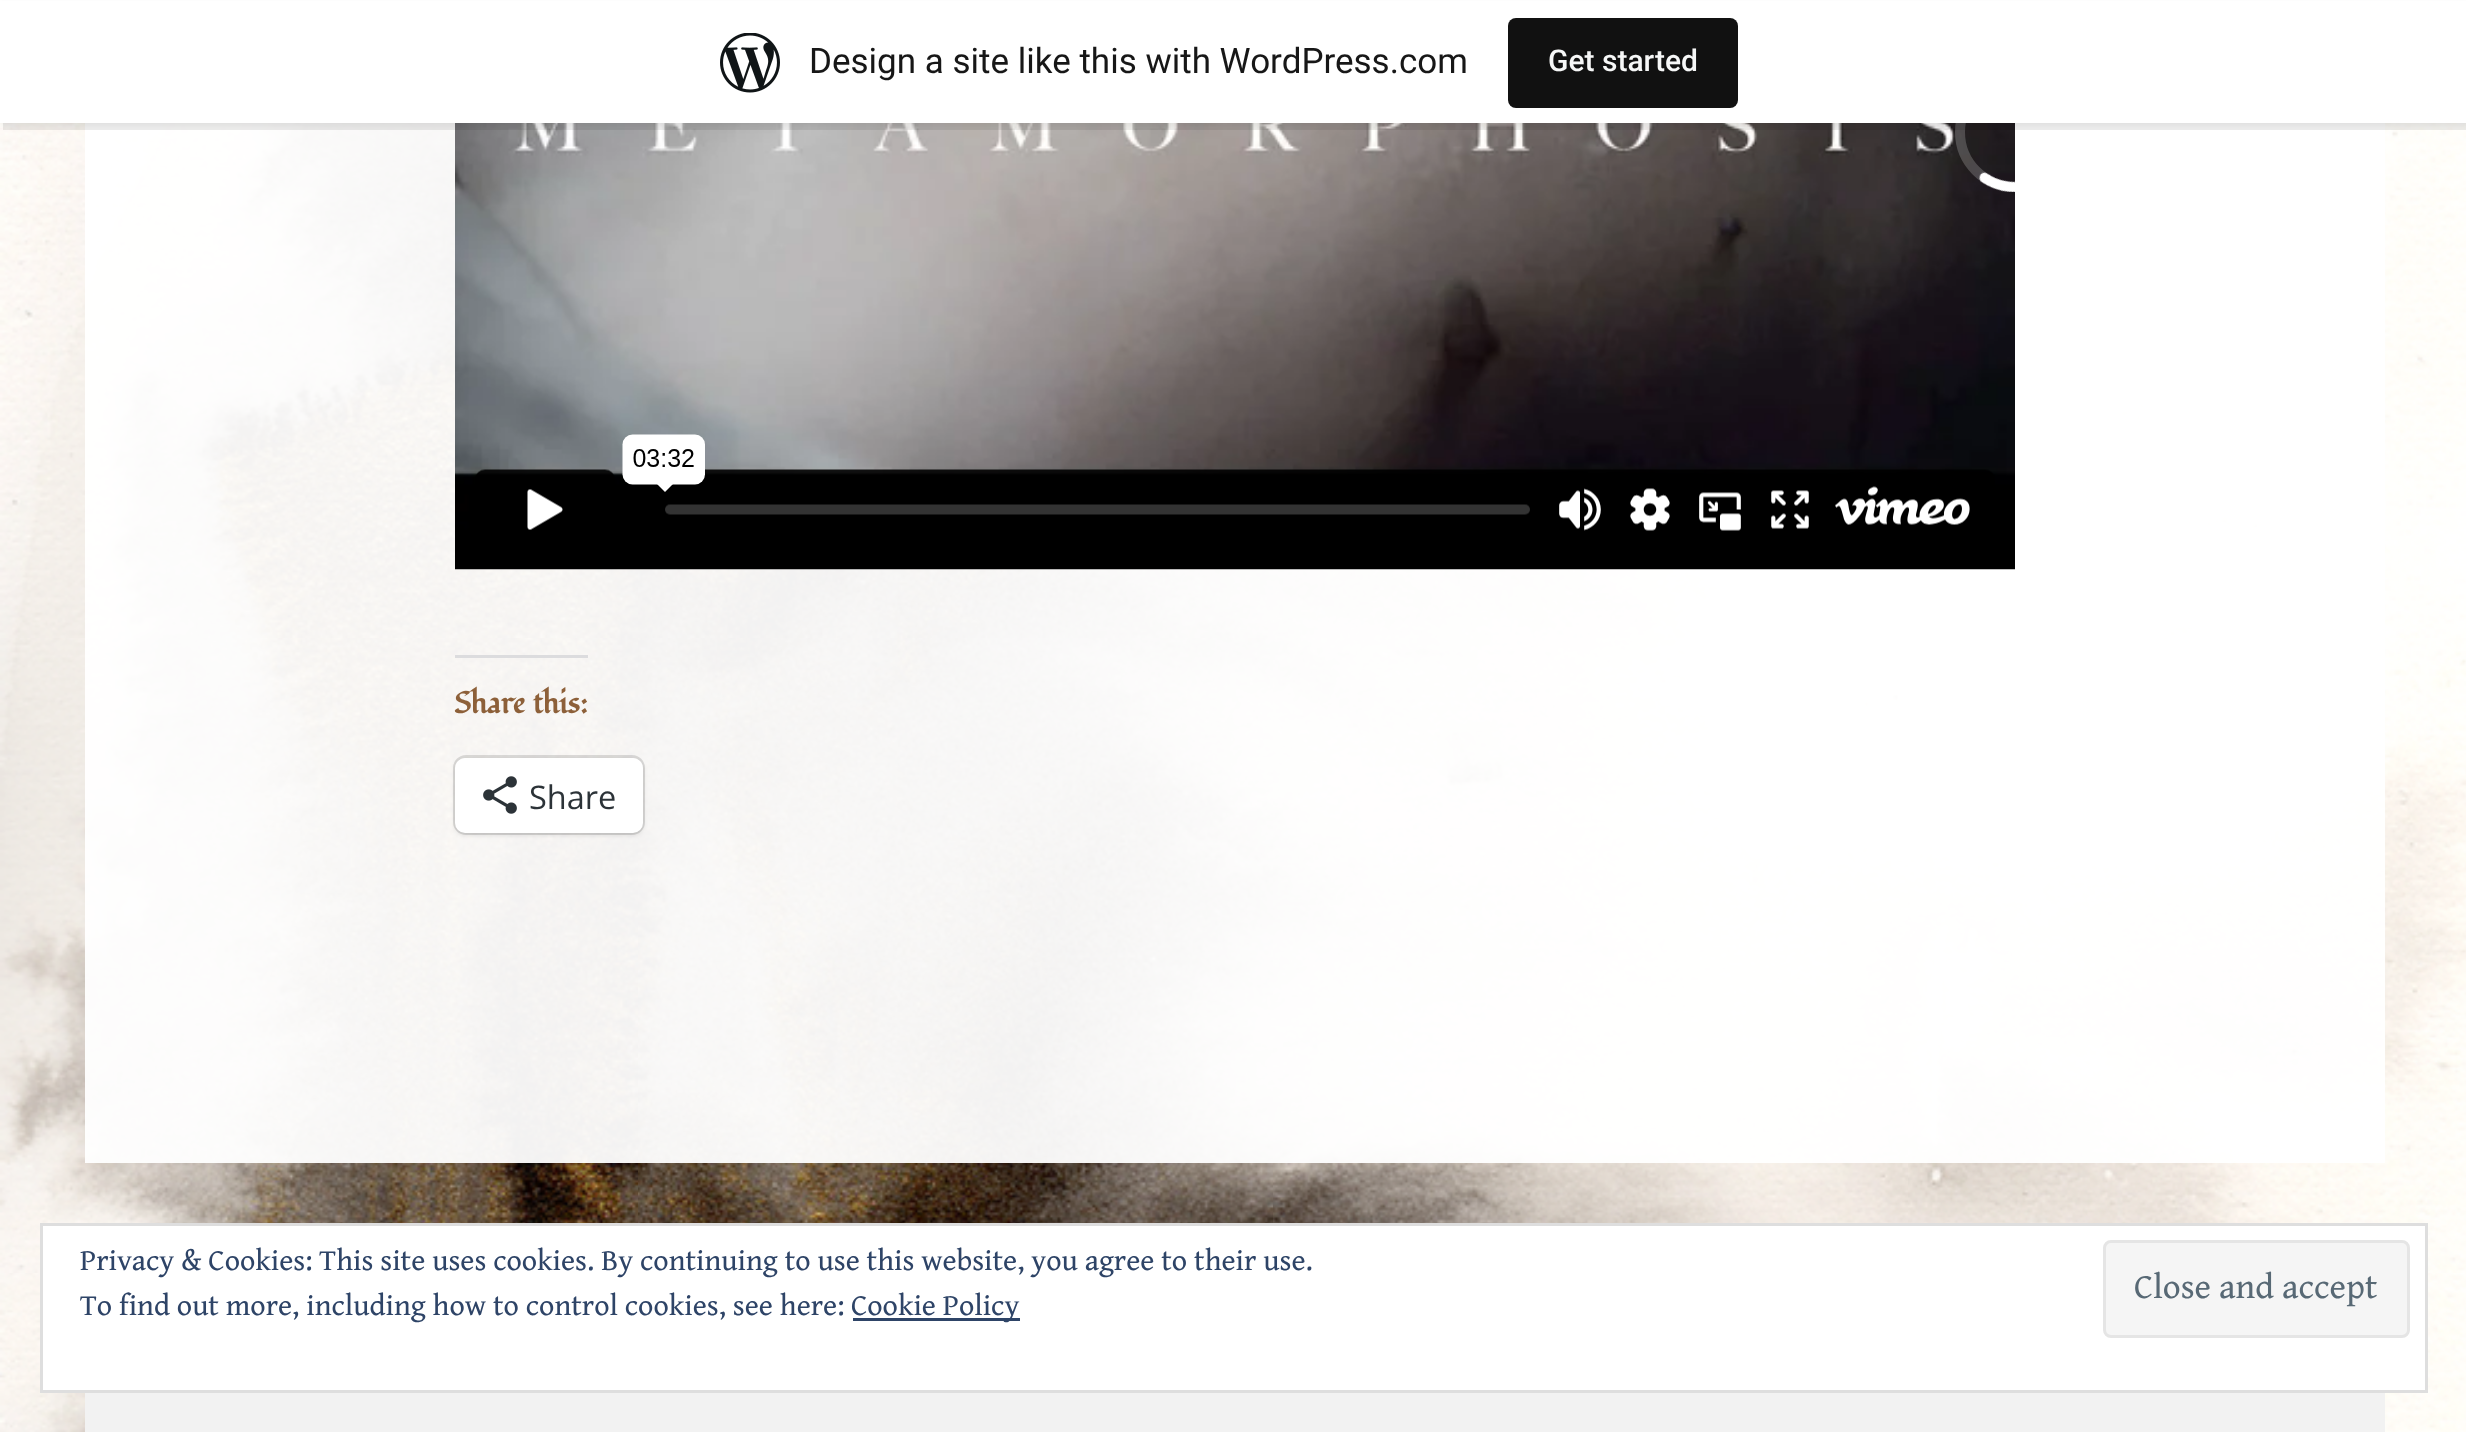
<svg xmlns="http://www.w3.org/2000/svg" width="2466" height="1432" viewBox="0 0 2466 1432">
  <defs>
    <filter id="blur1" x="-50%" y="-200%" width="200%" height="500%"><feGaussianBlur stdDeviation="2.5"/></filter>
  </defs>
  <rect width="100%" height="100%" fill="#ffffff"/>
  <image x="0" y="123" width="2466" height="1309" href="img1.png"/>
  <rect x="85" y="123" width="2300" height="1040" fill="#ffffff" fill-opacity="0.95"/>
  <image x="455" y="123" width="1560" height="447" href="img3.png"/>
  <rect x="0" y="3" width="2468" height="122" fill="#000000" fill-opacity="0.05" filter="url(#blur1)"/>
  <path d="M3 122V130H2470V8H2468V122Z" fill="#000000" fill-opacity="0.08"/>
  <rect x="0" y="1" width="2466" height="122" fill="#ffffff"/>
  <image x="720" y="33" width="60" height="60" href="img2.png"/>
  <text x="809" y="73" font-family="Roboto" font-size="35" fill="#171717">Design a site like this with WordPress.com</text>
  <rect x="1508" y="18" width="230" height="90" rx="8" fill="#111111"/>
  <text x="1548" y="71" font-family="Roboto" font-size="30" font-weight="500" fill="#f6f7f7">Get started</text>
  <rect x="455" y="655" width="133" height="3" fill="#dcdcde"/>
  <text x="454" y="713" font-family="Fondamento" font-size="30" font-weight="bold" fill="#8d6039">Share this:</text>
  <rect x="454.5" y="756.5" width="189" height="77" rx="11.5" fill="none" stroke="#000000" stroke-opacity="0.12" stroke-width="3"/>
  <rect x="455" y="760" width="188" height="75" rx="10" fill="#000000" fill-opacity="0.12" filter="url(#blur1)"/>
  <rect x="455" y="758" width="188" height="75" rx="10" fill="#ffffff"/>
  <image x="483" y="776" width="34" height="38" href="img4.png"/>
  <text x="529" y="809" font-family="Open Sans" font-size="32.5" fill="#2c3338">Share</text>
  <rect x="85" y="1393" width="2300" height="39" fill="#f2f2f2"/>
  <rect x="41.5" y="1224.5" width="2385" height="167" fill="#ffffff" stroke="#dedede" stroke-width="3"/>
  <text x="80" y="1270" font-family="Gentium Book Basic" font-size="30" fill="#2e4467">Privacy &amp; Cookies: This site uses cookies. By continuing to use this website, you agree to their use.</text>
  <text x="80" y="1315" font-family="Gentium Book Basic" font-size="30" fill="#2e4467">To find out more, including how to control cookies, see here:</text>
  <rect x="853" y="1318" width="167" height="3" fill="#2e4467"/>
  <text x="851" y="1315" font-family="Gentium Book Basic" font-size="30" fill="#2e4467">Cookie Policy</text>
  <rect x="2104.5" y="1241.5" width="304" height="95" rx="6.5" fill="#f5f5f5" stroke="#e5e5e5" stroke-width="3"/>
  <text x="2134" y="1298" font-family="Gentium Book Basic" font-size="35" fill="#586975">Close and accept</text>
</svg>
